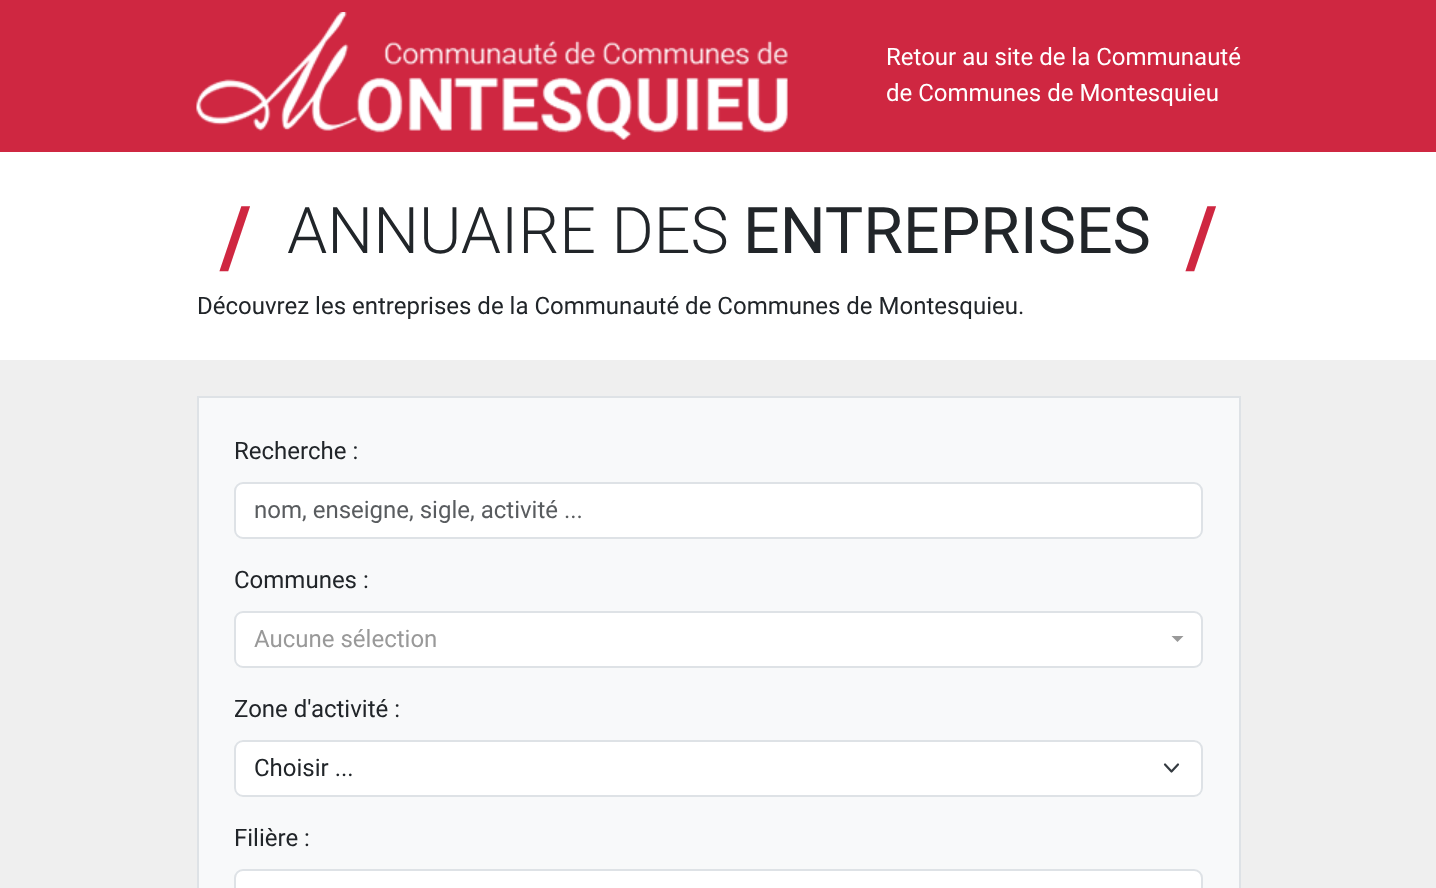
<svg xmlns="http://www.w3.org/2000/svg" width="1436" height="888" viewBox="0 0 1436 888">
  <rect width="100%" height="100%" fill="#efefef"/>
  <rect x="0" y="0" width="1436" height="152" fill="#cf2741"/>
  <image x="196" y="12" width="592" height="128" href="img1.png"/>
  <text x="886" y="65" font-family="Roboto" font-size="24" fill="#ffffff">Retour au site de la Communauté</text>
  <text x="886" y="101" font-family="Roboto" font-size="24" fill="#ffffff">de Communes de Montesquieu</text>
  <rect x="0" y="152" width="1436" height="208" fill="#ffffff"/>
  <text x="220" y="266" font-family="Roboto" font-size="84" font-weight="bold" fill="#cf2741">/</text>
  <text x="287" y="253" font-family="Roboto" font-size="64.5" font-weight="300" fill="#212529">ANNUAIRE DES</text>
  <text x="743" y="253" font-family="Roboto" font-size="64.5" fill="#212529">ENTREPRISES</text>
  <text x="1186" y="266" font-family="Roboto" font-size="84" font-weight="bold" fill="#cf2741">/</text>
  <text x="197" y="314" font-family="Roboto" font-size="24" fill="#212529">Découvrez les entreprises de la Communauté de Communes de Montesquieu.</text>
  <rect x="198" y="397" width="1042" height="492" fill="#f8f9fa" stroke="#dee2e6" stroke-width="2"/>
  <text x="234" y="459" font-family="Roboto" font-size="24" fill="#212529">Recherche :</text>
  <rect x="235" y="483" width="967" height="55" rx="8" fill="#ffffff" stroke="#dee2e6" stroke-width="2"/>
  <text x="254" y="518" font-family="Roboto" font-size="24" fill="#595c5f">nom, enseigne, sigle, activité ...</text>
  <text x="234" y="588" font-family="Roboto" font-size="24" fill="#212529">Communes :</text>
  <rect x="235" y="612" width="967" height="55" rx="8" fill="#ffffff" stroke="#dee2e6" stroke-width="2"/>
  <text x="254" y="647" font-family="Roboto" font-size="24" fill="#999999">Aucune sélection</text>
  <path d="M1171.5 636H1183.5L1177.5 642Z" fill="#999999"/>
  <text x="234" y="717" font-family="Roboto" font-size="24" fill="#212529">Zone d'activité :</text>
  <rect x="234" y="740" width="969" height="57" rx="9" fill="#ffffff"/>
  <path d="M1165 764.5L1171.5 771.5L1178 764.5" fill="none" stroke="#343a40" stroke-width="2.2" stroke-linecap="round" stroke-linejoin="round"/>
  <rect x="235" y="741" width="967" height="55" rx="8" fill="none" stroke="#dee2e6" stroke-width="2"/>
  <text x="254" y="776" font-family="Roboto" font-size="24" fill="#212529">Choisir ...</text>
  <text x="234" y="846" font-family="Roboto" font-size="24" fill="#212529">Filière :</text>
  <rect x="235" y="870" width="967" height="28" rx="8" fill="#ffffff" stroke="#dee2e6" stroke-width="2"/>
</svg>
